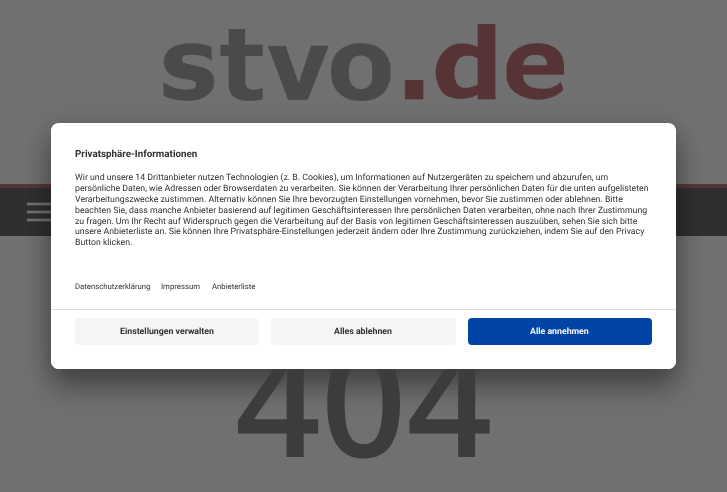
<svg xmlns="http://www.w3.org/2000/svg" width="727" height="492" viewBox="0 0 727 492">
  <defs>
    <filter id="blur1" x="-50%" y="-200%" width="200%" height="500%"><feGaussianBlur stdDeviation="14"/></filter>
    <filter id="blur2" x="-50%" y="-200%" width="200%" height="500%"><feGaussianBlur stdDeviation="13"/></filter>
    <clipPath id="clip1"><rect x="51" y="123" width="625" height="246" rx="8"/></clipPath>
    <clipPath id="clip2"><path d="M59 123H668C672.5 123 676 126.5 676 131V309H51V131C51 126.5 54.5 123 59 123Z"/></clipPath>
  </defs>
  <rect width="100%" height="100%" fill="#707070"/>
  <image x="163" y="24" width="401" height="77" href="img1.png"/>
  <rect x="0" y="188" width="727" height="48" fill="#2f2f30"/>
  <rect x="0" y="184" width="727" height="4" fill="#563535"/>
  <image x="26" y="202" width="25" height="20" href="img2.png"/>
  <rect x="51" y="143" width="625" height="246" rx="8" fill="#000000" fill-opacity="0.3" filter="url(#blur1)"/>
  <rect x="51" y="128" width="625" height="246" rx="8" fill="#000000" fill-opacity="0.22" filter="url(#blur2)"/>
  <text x="235" y="457" font-family="Open Sans" font-size="150" font-weight="600" fill="#3c3c3f">404</text>
  <rect x="51" y="123" width="625" height="246" rx="8" fill="#ffffff"/>
  <g clip-path="url(#clip1)">
    <g clip-path="url(#clip2)">
      <rect x="51" y="124" width="625" height="185" fill="#ffffff"/>
    </g>
  </g>
  <text x="75" y="157" font-family="Roboto" font-size="9.8" font-weight="bold" fill="#303030">Privatsphäre-Informationen</text>
  <text x="75" y="180" font-family="Roboto" font-size="8.75" fill="#303030">Wir und unsere 14 Drittanbieter nutzen Technologien (z. B. Cookies), um Informationen auf Nutzergeräten zu speichern und abzurufen, um</text>
  <text x="75" y="191" font-family="Roboto" font-size="8.75" fill="#303030">persönliche Daten, wie Adressen oder Browserdaten zu verarbeiten. Sie können der Verarbeitung Ihrer persönlichen Daten für die unten aufgelisteten</text>
  <text x="75" y="202" font-family="Roboto" font-size="8.75" fill="#303030">Verarbeitungszwecke zustimmen. Alternativ können Sie Ihre bevorzugten Einstellungen vornehmen, bevor Sie zustimmen oder ablehnen. Bitte</text>
  <text x="75" y="213" font-family="Roboto" font-size="8.75" fill="#303030">beachten Sie, dass manche Anbieter basierend auf legitimen Geschäftsinteressen Ihre persönlichen Daten verarbeiten, ohne nach Ihrer Zustimmung</text>
  <text x="75" y="224" font-family="Roboto" font-size="8.75" fill="#303030">zu fragen. Um Ihr Recht auf Widerspruch gegen die Verarbeitung auf der Basis von legitimen Geschäftsinteressen auszuüben, sehen Sie sich bitte</text>
  <text x="75" y="234" font-family="Roboto" font-size="8.75" fill="#303030">unsere Anbieterliste an. Sie können Ihre Privatsphäre-Einstellungen jederzeit ändern oder Ihre Zustimmung zurückziehen, indem Sie auf den Privacy</text>
  <text x="75" y="245" font-family="Roboto" font-size="8.75" fill="#303030">Button klicken.</text>
  <text x="75" y="289" font-family="Roboto" font-size="7.75" fill="#303030">Datenschutzerklärung</text>
  <text x="161" y="289" font-family="Roboto" font-size="7.75" fill="#303030">Impressum</text>
  <text x="212" y="289" font-family="Roboto" font-size="7.75" fill="#303030">Anbieterliste</text>
  <path d="M51 309H676V361C676 365.5 672.5 369 668 369H59C54.5 369 51 365.5 51 361Z" fill="#ffffff"/>
  <rect x="51" y="309" width="625" height="1" fill="#dddddd"/>
  <rect x="75" y="318" width="184" height="27" rx="4" fill="#f5f5f5"/>
  <text x="120" y="334" font-family="Roboto" font-size="8.75" font-weight="bold" fill="#303030">Einstellungen verwalten</text>
  <rect x="271" y="318" width="185" height="27" rx="4" fill="#f5f5f5"/>
  <text x="334" y="334" font-family="Roboto" font-size="8.75" font-weight="bold" fill="#303030">Alles ablehnen</text>
  <rect x="468" y="318" width="184" height="27" rx="4" fill="#0045a5"/>
  <text x="530" y="334" font-family="Roboto" font-size="8.75" font-weight="bold" fill="#fafafa">Alle annehmen</text>
</svg>
